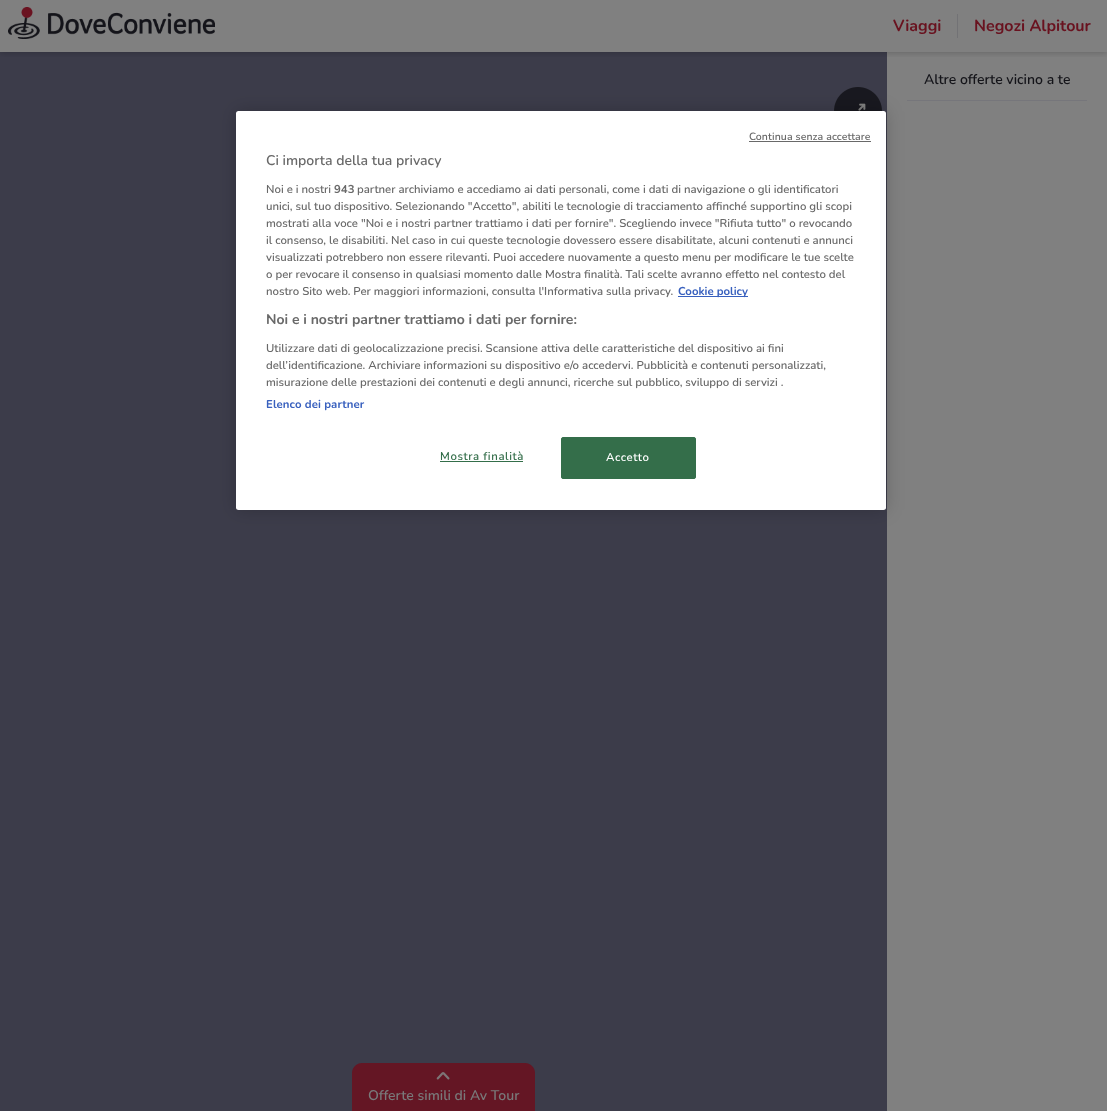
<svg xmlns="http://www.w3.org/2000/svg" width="1107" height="1111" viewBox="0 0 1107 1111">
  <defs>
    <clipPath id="clip1"><rect x="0" y="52" width="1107" height="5"/></clipPath>
    <filter id="blur1" x="-50%" y="-200%" width="200%" height="500%"><feGaussianBlur stdDeviation="3"/></filter>
    <filter id="blur2" x="-50%" y="-200%" width="200%" height="500%"><feGaussianBlur stdDeviation="9"/></filter>
  </defs>
  <rect width="100%" height="100%" fill="#808080"/>
  <rect x="0" y="52" width="887" height="1059" fill="#3c3c4a"/>
  <g clip-path="url(#clip1)">
    <rect x="0" y="1" width="1107" height="52" fill="#000000" fill-opacity="0.2" filter="url(#blur1)"/>
  </g>
  <image x="8" y="7" width="207" height="32" href="img1.png"/>
  <text x="893" y="31" font-family="Nunito" font-size="16" font-weight="bold" fill="#69121f">Viaggi</text>
  <rect x="957" y="14" width="1" height="24" fill="#727275"/>
  <text x="974" y="31" font-family="Nunito" font-size="16" font-weight="bold" fill="#69121f">Negozi Alpitour</text>
  <text x="924" y="84" font-family="Nunito" font-size="14" font-weight="600" fill="#141419">Altre offerte vicino a te</text>
  <rect x="907" y="100" width="180" height="1" fill="#76767b"/>
  <image x="834" y="87" width="48" height="24" href="img2.png"/>
  <path d="M362 1063H525C530.5 1063 535 1067.5 535 1073V1111H352V1073C352 1067.5 356.5 1063 362 1063Z" fill="#641624"/>
  <image x="436" y="1072" width="14" height="8" href="img3.png"/>
  <text x="368" y="1100" font-family="Nunito" font-size="14" font-weight="600" fill="#79797a">Offerte simili di Av Tour</text>
  <rect x="236" y="111" width="650" height="399" rx="2.5" fill="#000000" fill-opacity="0.2" filter="url(#blur2)"/>
  <rect x="236" y="111" width="650" height="399" rx="2.5" fill="#ffffff"/>
  <text x="749" y="140" font-family="Nunito" font-size="10.5" font-weight="600" letter-spacing="0.1" fill="#696969">Continua senza accettare</text>
  <rect x="749" y="141" width="122" height="1" fill="#696969"/>
  <text x="266" y="165" font-family="Nunito" font-size="14" font-weight="600" fill="#696969">Ci importa della tua privacy</text>
  <text x="266" y="193" font-family="Nunito" font-size="11.38" font-weight="600" fill="#696969">Noi e i nostri</text>
  <text x="334" y="193" font-family="Nunito" font-size="11.38" font-weight="bold" fill="#696969">943</text>
  <text x="357" y="193" font-family="Nunito" font-size="11.38" font-weight="600" fill="#696969">partner archiviamo e accediamo ai dati personali, come i dati di navigazione o gli identificatori</text>
  <text x="266" y="210" font-family="Nunito" font-size="11.38" font-weight="600" fill="#696969">unici, sul tuo dispositivo. Selezionando "Accetto", abiliti le tecnologie di tracciamento affinché supportino gli scopi</text>
  <text x="266" y="227" font-family="Nunito" font-size="11.38" font-weight="600" fill="#696969">mostrati alla voce "Noi e i nostri partner trattiamo i dati per fornire". Scegliendo invece "Rifiuta tutto" o revocando</text>
  <text x="266" y="244" font-family="Nunito" font-size="11.38" font-weight="600" fill="#696969">il consenso, le disabiliti. Nel caso in cui queste tecnologie dovessero essere disabilitate, alcuni contenuti e annunci</text>
  <text x="266" y="261" font-family="Nunito" font-size="11.38" font-weight="600" fill="#696969">visualizzati potrebbero non essere rilevanti. Puoi accedere nuovamente a questo menu per modificare le tue scelte</text>
  <text x="266" y="278" font-family="Nunito" font-size="11.38" font-weight="600" fill="#696969">o per revocare il consenso in qualsiasi momento dalle Mostra finalità. Tali scelte avranno effetto nel contesto del</text>
  <text x="266" y="295" font-family="Nunito" font-size="11.38" font-weight="600" fill="#696969">nostro Sito web. Per maggiori informazioni, consulta l'Informativa sulla privacy.</text>
  <rect x="678" y="296" width="70" height="1" fill="#3860be"/>
  <text x="678" y="295" font-family="Nunito" font-size="11.38" font-weight="bold" fill="#3860be">Cookie policy</text>
  <text x="266" y="324" font-family="Nunito" font-size="14" font-weight="bold" fill="#696969">Noi e i nostri partner trattiamo i dati per fornire:</text>
  <text x="266" y="352" font-family="Nunito" font-size="11.38" font-weight="600" fill="#696969">Utilizzare dati di geolocalizzazione precisi. Scansione attiva delle caratteristiche del dispositivo ai fini</text>
  <text x="266" y="369" font-family="Nunito" font-size="11.38" font-weight="600" fill="#696969">dell’identificazione. Archiviare informazioni su dispositivo e/o accedervi. Pubblicità e contenuti personalizzati,</text>
  <text x="266" y="386" font-family="Nunito" font-size="11.38" font-weight="600" fill="#696969">misurazione delle prestazioni dei contenuti e degli annunci, ricerche sul pubblico, sviluppo di servizi .</text>
  <text x="266" y="408" font-family="Nunito" font-size="11.38" font-weight="bold" letter-spacing="0.1" fill="#3860be">Elenco dei partner</text>
  <text x="440" y="460" font-family="Nunito" font-size="11.38" font-weight="600" letter-spacing="0.6" fill="#346e4a">Mostra finalità</text>
  <rect x="440" y="461" width="83" height="1" fill="#346e4a"/>
  <rect x="561.5" y="437.5" width="134" height="41" rx="1.5" fill="#346e4a" stroke="#346e4a"/>
  <text x="606" y="461" font-family="Nunito" font-size="11.38" font-weight="600" letter-spacing="0.6" fill="#ffffff">Accetto</text>
</svg>
